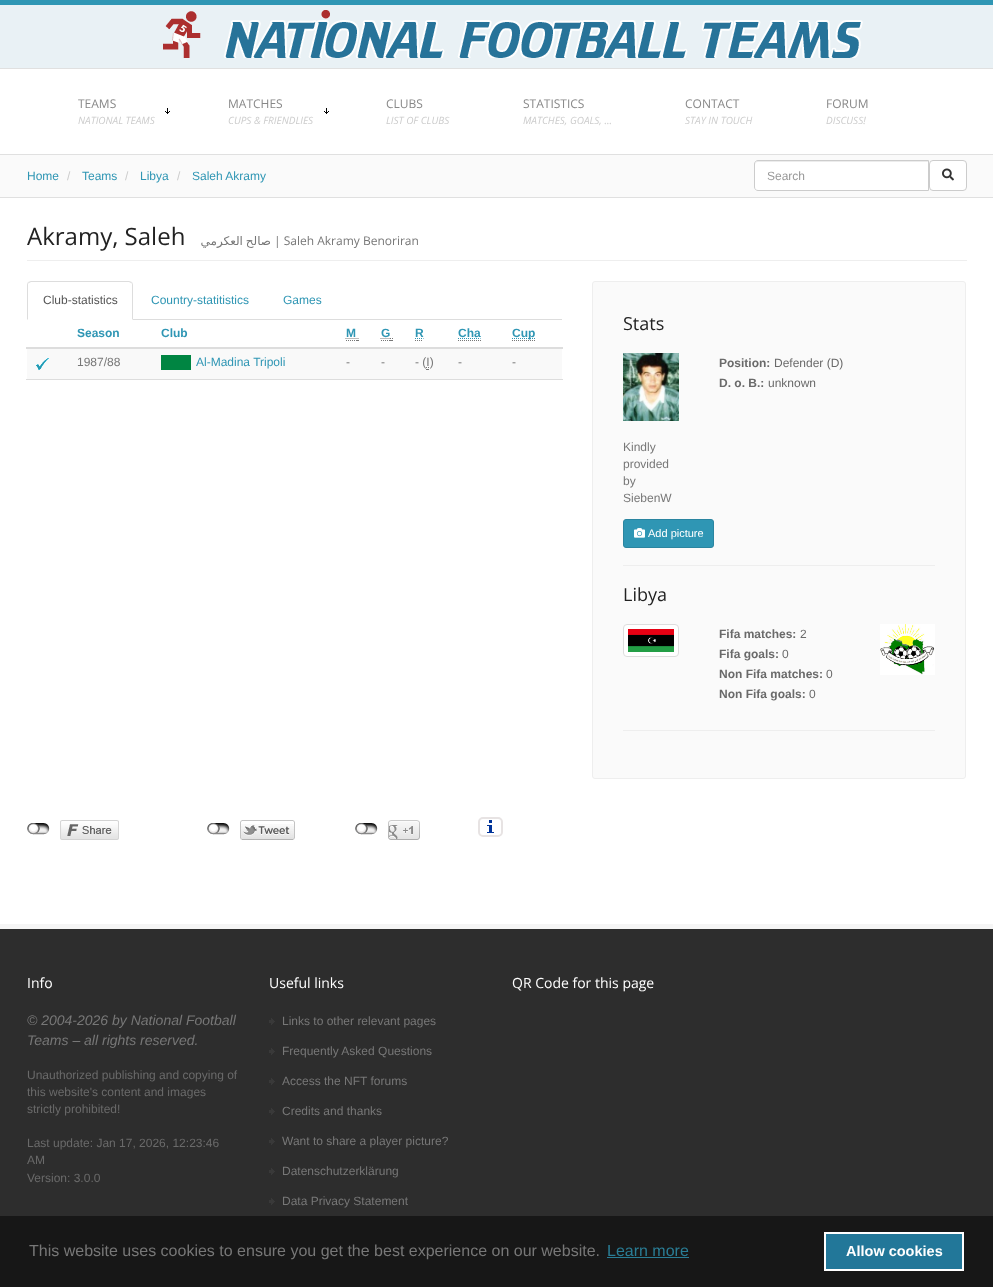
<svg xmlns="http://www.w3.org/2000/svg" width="993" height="1287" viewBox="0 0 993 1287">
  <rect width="100%" height="100%" fill="#ffffff"/>
  <rect x="0" y="155" width="993" height="42" fill="#fafafa"/>
  <rect x="0" y="197" width="993" height="1" fill="#e0e0e0"/>
  <rect x="0" y="0" width="993" height="5" fill="#2f96b4"/>
  <rect x="0" y="154" width="993" height="1" fill="#e0e0e0"/>
  <rect x="0" y="5" width="993" height="63" fill="#e9f1f5"/>
  <rect x="0" y="68" width="993" height="1" fill="#e0e0e0"/>
  <image x="163" y="10" width="700" height="48" href="img1.png"/>
  <text x="78" y="108" font-family="Open Sans" font-size="12" fill="#888888">TEAMS</text>
  <text x="78" y="124" font-family="Open Sans" font-size="10" font-style="italic" fill="#cccccc">NATIONAL TEAMS</text>
  <image x="165" y="108" width="5" height="6" href="img2.png"/>
  <text x="228" y="108" font-family="Open Sans" font-size="12" fill="#888888">MATCHES</text>
  <text x="228" y="124" font-family="Open Sans" font-size="10" font-style="italic" fill="#cccccc">CUPS &amp; FRIENDLIES</text>
  <image x="324" y="108" width="5" height="6" href="img2.png"/>
  <text x="386" y="108" font-family="Open Sans" font-size="12" fill="#888888">CLUBS</text>
  <text x="386" y="124" font-family="Open Sans" font-size="10" font-style="italic" fill="#cccccc">LIST OF CLUBS</text>
  <text x="523" y="108" font-family="Open Sans" font-size="12" fill="#888888">STATISTICS</text>
  <text x="523" y="124" font-family="Open Sans" font-size="10" font-style="italic" fill="#cccccc">MATCHES, GOALS, ...</text>
  <text x="685" y="108" font-family="Open Sans" font-size="12" fill="#888888">CONTACT</text>
  <text x="685" y="124" font-family="Open Sans" font-size="10" font-style="italic" fill="#cccccc">STAY IN TOUCH</text>
  <text x="826" y="108" font-family="Open Sans" font-size="12" fill="#888888">FORUM</text>
  <text x="826" y="124" font-family="Open Sans" font-size="10" font-style="italic" fill="#cccccc">DISCUSS!</text>
  <text x="27" y="180" font-family="Liberation Sans" font-size="12" fill="#2f96b4">Home</text>
  <text x="67" y="180" font-family="Liberation Sans" font-size="12" fill="#cccccc">/</text>
  <text x="82" y="180" font-family="Liberation Sans" font-size="12" fill="#2f96b4">Teams</text>
  <text x="125" y="180" font-family="Liberation Sans" font-size="12" fill="#cccccc">/</text>
  <text x="140" y="180" font-family="Liberation Sans" font-size="12" fill="#2f96b4">Libya</text>
  <text x="177" y="180" font-family="Liberation Sans" font-size="12" fill="#cccccc">/</text>
  <text x="192" y="180" font-family="Liberation Sans" font-size="12" fill="#2f96b4">Saleh Akramy</text>
  <path d="M758 160H929V191H758C756 191 754 189 754 187V164C754 162 756 160 758 160Z" fill="#ffffff"/>
  <path d="M758 162H928V161H757C755 162 755 163 755 165C755 163 756 162 758 162Z" fill="#ececec"/>
  <path d="M758 160.5H928.5V190.5H758C756 190.5 754.5 189 754.5 187V164C754.5 162 756 160.5 758 160.5Z" fill="none" stroke="#cccccc"/>
  <text x="767" y="180" font-family="Liberation Sans" font-size="12" fill="#999999">Search</text>
  <rect x="929.5" y="160.5" width="37" height="30" rx="3.5" fill="#ffffff" stroke="#cccccc"/>
  <image x="942" y="168" width="12" height="13" href="img3.png"/>
  <rect x="0" y="924" width="993" height="5" fill="#f5f5f5"/>
  <rect x="27" y="260" width="940" height="1" fill="#eeeeee"/>
  <text x="27" y="245" font-family="Open Sans" font-size="24" fill="#222222">Akramy, Saleh</text>
  <text x="271" y="245" word-spacing="-1" font-family="DejaVu Sans" font-size="12" direction="rtl" fill="#777777">صالح العكرمي</text>
  <text x="274" y="245" font-family="Open Sans" font-size="12" fill="#777777">| Saleh Akramy Benoriran</text>
  <rect x="133" y="319" width="429" height="1" fill="#dddddd"/>
  <path d="M31 281L28 282L29 283L31 282H129L131 283L132 282L129 281Z" fill="#dddddd"/>
  <path d="M133 320V285C133 284 132.5 283 132 282L131 283C132 283 132 284 132 285V319Z" fill="#dddddd"/>
  <path d="M27 320L28 319V285C28 284 28 283 29 283L28 282C27.5 283 27 284 27 285Z" fill="#dddddd"/>
  <text x="43" y="304" font-family="Liberation Sans" font-size="12" fill="#555555">Club-statistics</text>
  <text x="151" y="304" font-family="Liberation Sans" font-size="12" fill="#2f96b4">Country-statitistics</text>
  <text x="283" y="304" font-family="Liberation Sans" font-size="12" fill="#2f96b4">Games</text>
  <text x="77" y="337" font-family="Liberation Sans" font-size="12" font-weight="bold" fill="#2f96b4">Season</text>
  <text x="161" y="337" font-family="Liberation Sans" font-size="12" font-weight="bold" fill="#2f96b4">Club</text>
  <text x="346" y="337" font-family="Liberation Sans" font-size="12" font-weight="bold" fill="#2f96b4">M</text>
  <path d="M346 340.5H356" fill="none" stroke="#777777" stroke-dasharray="1 1"/>
  <rect x="356" y="340" width="3" height="1" fill="#777777"/>
  <path d="M345.5 338.5H355.5" fill="none" stroke="#777777" stroke-dasharray="1 1"/>
  <path d="M355.5 338.5H356.5M357.5 338.5H358.5" fill="none" stroke="#777777"/>
  <text x="381" y="337" font-family="Liberation Sans" font-size="12" font-weight="bold" fill="#2f96b4">G</text>
  <path d="M381 340.5H390" fill="none" stroke="#777777" stroke-dasharray="1 1"/>
  <rect x="390" y="340" width="3" height="1" fill="#777777"/>
  <path d="M380.5 338.5H390" fill="none" stroke="#777777" stroke-dasharray="1 1"/>
  <path d="M390 338.5H391M392 338.5H393" fill="none" stroke="#777777"/>
  <text x="415" y="337" font-family="Liberation Sans" font-size="12" font-weight="bold" fill="#2f96b4">R</text>
  <path d="M415 340.5H423" fill="none" stroke="#777777" stroke-dasharray="1 1"/>
  <path d="M415 338.5H423.5" fill="none" stroke="#2f96b4" stroke-dasharray="1 1"/>
  <text x="458" y="337" font-family="Liberation Sans" font-size="12" font-weight="bold" fill="#2f96b4">Cha</text>
  <path d="M458 340.5H481" fill="none" stroke="#777777" stroke-dasharray="1 1"/>
  <path d="M458 338.5H480.5" fill="none" stroke="#2f96b4" stroke-dasharray="1 1"/>
  <rect x="26" y="347" width="537" height="2" fill="#dddddd"/>
  <path d="M512 338.5H535.5" fill="none" stroke="#2f96b4" stroke-dasharray="1 1"/>
  <text x="512" y="337" font-family="Liberation Sans" font-size="12" font-weight="bold" fill="#2f96b4">Cup</text>
  <path d="M512 340.5H535" fill="none" stroke="#777777" stroke-dasharray="1 1"/>
  <rect x="27" y="349" width="535" height="30" fill="#f9f9f9"/>
  <image x="36" y="358" width="13" height="13" href="img4.png"/>
  <text x="77" y="366" font-family="Liberation Sans" font-size="12" fill="#777777">1987/88</text>
  <rect x="161" y="355" width="30" height="15" fill="#008542"/>
  <text x="196" y="366" font-family="Liberation Sans" font-size="12" fill="#2f96b4">Al-Madina Tripoli</text>
  <text x="346" y="366" font-family="Liberation Sans" font-size="12" fill="#777777">-</text>
  <text x="381" y="366" font-family="Liberation Sans" font-size="12" fill="#777777">-</text>
  <text x="415" y="366" font-family="Liberation Sans" font-size="12" fill="#777777">- (I)</text>
  <path d="M426 367.5H427M428 367.5H429" fill="none" stroke="#777777"/>
  <rect x="426" y="369" width="3" height="1" fill="#777777"/>
  <text x="458" y="366" font-family="Liberation Sans" font-size="12" fill="#777777">-</text>
  <text x="512" y="366" font-family="Liberation Sans" font-size="12" fill="#777777">-</text>
  <rect x="26" y="379" width="537" height="1" fill="#dddddd"/>
  <rect x="592.5" y="281.5" width="373" height="497" rx="2.5" fill="#fafafa" stroke="#eeeeee"/>
  <text x="623" y="330" font-family="Open Sans" font-size="18" fill="#222222">Stats</text>
  <text x="719" y="367" font-family="Liberation Sans" font-size="12" font-weight="bold" fill="#6a6a6a">Position:</text>
  <text x="774" y="367" font-family="Liberation Sans" font-size="12" fill="#6a6a6a">Defender (D)</text>
  <text x="719" y="387" font-family="Liberation Sans" font-size="12" font-weight="bold" fill="#6a6a6a">D. o. B.:</text>
  <text x="768" y="387" font-family="Liberation Sans" font-size="12" fill="#6a6a6a">unknown</text>
  <image x="623" y="353" width="56" height="68" href="img5.png"/>
  <text x="623" y="451" font-family="Liberation Sans" font-size="12" fill="#777777">Kindly</text>
  <text x="623" y="468" font-family="Liberation Sans" font-size="12" fill="#777777">provided</text>
  <text x="623" y="485" font-family="Liberation Sans" font-size="12" fill="#777777">by</text>
  <text x="623" y="502" font-family="Liberation Sans" font-size="12" fill="#777777">SiebenW</text>
  <rect x="623.5" y="519.5" width="90" height="28" rx="2.5" fill="#2f96b4" stroke="#2a85a0"/>
  <image x="634" y="528" width="11" height="10" href="img6.png"/>
  <text x="648" y="537" font-family="Liberation Sans" font-size="11" fill="#ffffff">Add picture</text>
  <rect x="623" y="565" width="312" height="1" fill="#eeeeee"/>
  <text x="623" y="601" font-family="Open Sans" font-size="18" fill="#222222">Libya</text>
  <rect x="623.5" y="624.5" width="55" height="32" rx="3.5" fill="#ffffff" stroke="#dddddd"/>
  <image x="628" y="629" width="46" height="23" href="img7.png"/>
  <text x="719" y="638" font-family="Liberation Sans" font-size="12" font-weight="bold" fill="#6a6a6a">Fifa matches:</text>
  <text x="800" y="638" font-family="Liberation Sans" font-size="12" fill="#6a6a6a">2</text>
  <text x="719" y="658" font-family="Liberation Sans" font-size="12" font-weight="bold" fill="#6a6a6a">Fifa goals:</text>
  <text x="782" y="658" font-family="Liberation Sans" font-size="12" fill="#6a6a6a">0</text>
  <text x="719" y="678" font-family="Liberation Sans" font-size="12" font-weight="bold" fill="#6a6a6a">Non Fifa matches:</text>
  <text x="826" y="678" font-family="Liberation Sans" font-size="12" fill="#6a6a6a">0</text>
  <text x="719" y="698" font-family="Liberation Sans" font-size="12" font-weight="bold" fill="#6a6a6a">Non Fifa goals:</text>
  <text x="809" y="698" font-family="Liberation Sans" font-size="12" fill="#6a6a6a">0</text>
  <image x="880" y="624" width="55" height="51" href="img8.png"/>
  <rect x="623" y="730" width="312" height="1" fill="#eeeeee"/>
  <image x="27" y="823" width="23" height="12" href="img9.png"/>
  <image x="60" y="820" width="59" height="20" href="img10.png"/>
  <image x="207" y="823" width="23" height="12" href="img9.png"/>
  <image x="240" y="820" width="55" height="20" href="img11.png"/>
  <image x="355" y="823" width="23" height="12" href="img9.png"/>
  <image x="388" y="820" width="32" height="20" href="img12.png"/>
  <image x="487" y="820" width="7" height="13" href="img13.png"/>
  <rect x="479" y="818" width="23" height="18" rx="4" fill="none" stroke="#e7e3e3" stroke-width="2"/>
  <rect x="0" y="929" width="993" height="287" fill="#2d2d2d"/>
  <text x="27" y="988" font-family="Open Sans" font-size="14" fill="#ffffff">Info</text>
  <text x="27" y="1025" font-family="Liberation Sans" font-size="14" font-style="italic" fill="#777777">© 2004-2026 by National Football</text>
  <text x="27" y="1045" font-family="Liberation Sans" font-size="14" font-style="italic" fill="#777777">Teams – all rights reserved.</text>
  <text x="27" y="1079" font-family="Liberation Sans" font-size="12" fill="#6a6a6a">Unauthorized publishing and copying of</text>
  <text x="27" y="1096" font-family="Liberation Sans" font-size="12" fill="#6a6a6a">this website's content and images</text>
  <text x="27" y="1113" font-family="Liberation Sans" font-size="12" fill="#6a6a6a">strictly prohibited!</text>
  <text x="27" y="1147" font-family="Liberation Sans" font-size="12" fill="#6a6a6a">Last update: Jan 17, 2026, 12:23:46</text>
  <text x="27" y="1164" font-family="Liberation Sans" font-size="12" fill="#6a6a6a">AM</text>
  <text x="27" y="1182" font-family="Liberation Sans" font-size="12" fill="#6a6a6a">Version: 3.0.0</text>
  <text x="269" y="988" font-family="Open Sans" font-size="14" fill="#ffffff">Useful links</text>
  <image x="269" y="1018" width="6" height="7" href="img14.png"/>
  <text x="282" y="1025" font-family="Liberation Sans" font-size="12" fill="#777777">Links to other relevant pages</text>
  <image x="269" y="1048" width="6" height="7" href="img14.png"/>
  <text x="282" y="1055" font-family="Liberation Sans" font-size="12" fill="#777777">Frequently Asked Questions</text>
  <image x="269" y="1078" width="6" height="7" href="img14.png"/>
  <text x="282" y="1085" font-family="Liberation Sans" font-size="12" fill="#777777">Access the NFT forums</text>
  <image x="269" y="1108" width="6" height="7" href="img14.png"/>
  <text x="282" y="1115" font-family="Liberation Sans" font-size="12" fill="#777777">Credits and thanks</text>
  <image x="269" y="1138" width="6" height="7" href="img14.png"/>
  <text x="282" y="1145" font-family="Liberation Sans" font-size="12" fill="#777777">Want to share a player picture?</text>
  <image x="269" y="1168" width="6" height="7" href="img14.png"/>
  <text x="282" y="1175" font-family="Liberation Sans" font-size="12" fill="#777777">Datenschutzerklärung</text>
  <image x="269" y="1198" width="6" height="7" href="img14.png"/>
  <text x="282" y="1205" font-family="Liberation Sans" font-size="12" fill="#777777">Data Privacy Statement</text>
  <text x="512" y="988" font-family="Open Sans" font-size="14" fill="#ffffff">QR Code for this page</text>
  <rect x="0" y="1216" width="993" height="71" fill="#171717"/>
  <text x="29" y="1256" font-family="Liberation Sans" font-size="16" fill="#777777">This website uses cookies to ensure you get the best experience on our website.</text>
  <text x="607" y="1256" font-family="Liberation Sans" font-size="16" fill="#2a7d95">Learn more</text>
  <rect x="607" y="1257" width="82" height="1" fill="#2a7d95"/>
  <rect x="825" y="1233" width="138" height="37" fill="#227799" stroke="#ffffff" stroke-width="2"/>
  <text x="846" y="1256" font-family="Liberation Sans" font-size="14.5" font-weight="bold" fill="#ffffff">Allow cookies</text>
</svg>
